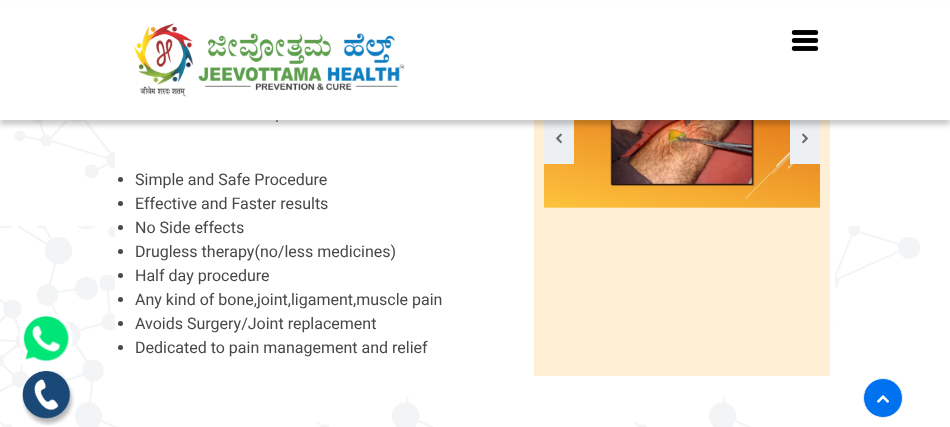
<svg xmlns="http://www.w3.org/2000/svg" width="950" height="427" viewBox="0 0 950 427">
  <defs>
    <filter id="blur1" x="-50%" y="-200%" width="200%" height="500%"><feGaussianBlur stdDeviation="2.5"/></filter>
  </defs>
  <rect width="100%" height="100%" fill="#ffffff"/>
  <image x="0" y="120" width="920" height="307" href="img4.png"/>
  <rect x="115" y="120" width="720" height="276" fill="#ffffff"/>
  <rect x="534" y="120" width="296" height="256" fill="#ffefd5"/>
  <image x="544" y="120" width="276" height="88" href="img5.png"/>
  <rect x="544" y="120" width="30" height="44" fill="#ecf0f3"/>
  <image x="556" y="133" width="6" height="11" href="img6.png"/>
  <rect x="790" y="120" width="30" height="44" fill="#ecf0f3"/>
  <image x="802" y="133" width="6" height="11" href="img7.png"/>
  <rect x="0" y="5" width="950" height="120" fill="#000000" fill-opacity="0.2" filter="url(#blur1)"/>
  <rect x="0" y="1" width="950" height="119" fill="#ffffff"/>
  <image x="134" y="23" width="271" height="74" href="img1.png"/>
  <image x="791" y="30" width="28" height="21" href="img2.png"/>
  <image x="19" y="313" width="54" height="52" href="img3.png"/>
  <text x="275" y="122" font-family="Roboto" font-size="16" fill="#4a4747">.</text>
  <circle cx="120.5" cy="179.5" r="2.5" fill="#4a4747"/>
  <text x="135" y="185" font-family="Roboto" font-size="16" fill="#4a4747">Simple and Safe Procedure</text>
  <circle cx="120.5" cy="203.5" r="2.5" fill="#4a4747"/>
  <text x="135" y="209" font-family="Roboto" font-size="16" fill="#4a4747">Effective and Faster results</text>
  <circle cx="120.5" cy="227.5" r="2.5" fill="#4a4747"/>
  <text x="135" y="233" font-family="Roboto" font-size="16" fill="#4a4747">No Side effects</text>
  <circle cx="120.5" cy="251.5" r="2.5" fill="#4a4747"/>
  <text x="135" y="257" font-family="Roboto" font-size="16" fill="#4a4747">Drugless therapy(no/less medicines)</text>
  <circle cx="120.5" cy="275.5" r="2.5" fill="#4a4747"/>
  <text x="135" y="281" font-family="Roboto" font-size="16" fill="#4a4747">Half day procedure</text>
  <circle cx="120.5" cy="299.5" r="2.5" fill="#4a4747"/>
  <text x="135" y="305" font-family="Roboto" font-size="16" fill="#4a4747">Any kind of bone,joint,ligament,muscle pain</text>
  <circle cx="120.5" cy="323.5" r="2.5" fill="#4a4747"/>
  <text x="135" y="329" font-family="Roboto" font-size="16" fill="#4a4747">Avoids Surgery/Joint replacement</text>
  <circle cx="120.5" cy="347.5" r="2.5" fill="#4a4747"/>
  <text x="135" y="353" font-family="Roboto" font-size="16" fill="#4a4747">Dedicated to pain management and relief</text>
  <image x="22" y="371" width="53" height="55" href="img8.png"/>
  <circle cx="883" cy="398" r="19.5" fill="#0071ef" stroke="#ecf0f3"/>
  <image x="877" y="395" width="12" height="8" href="img9.png"/>
</svg>
